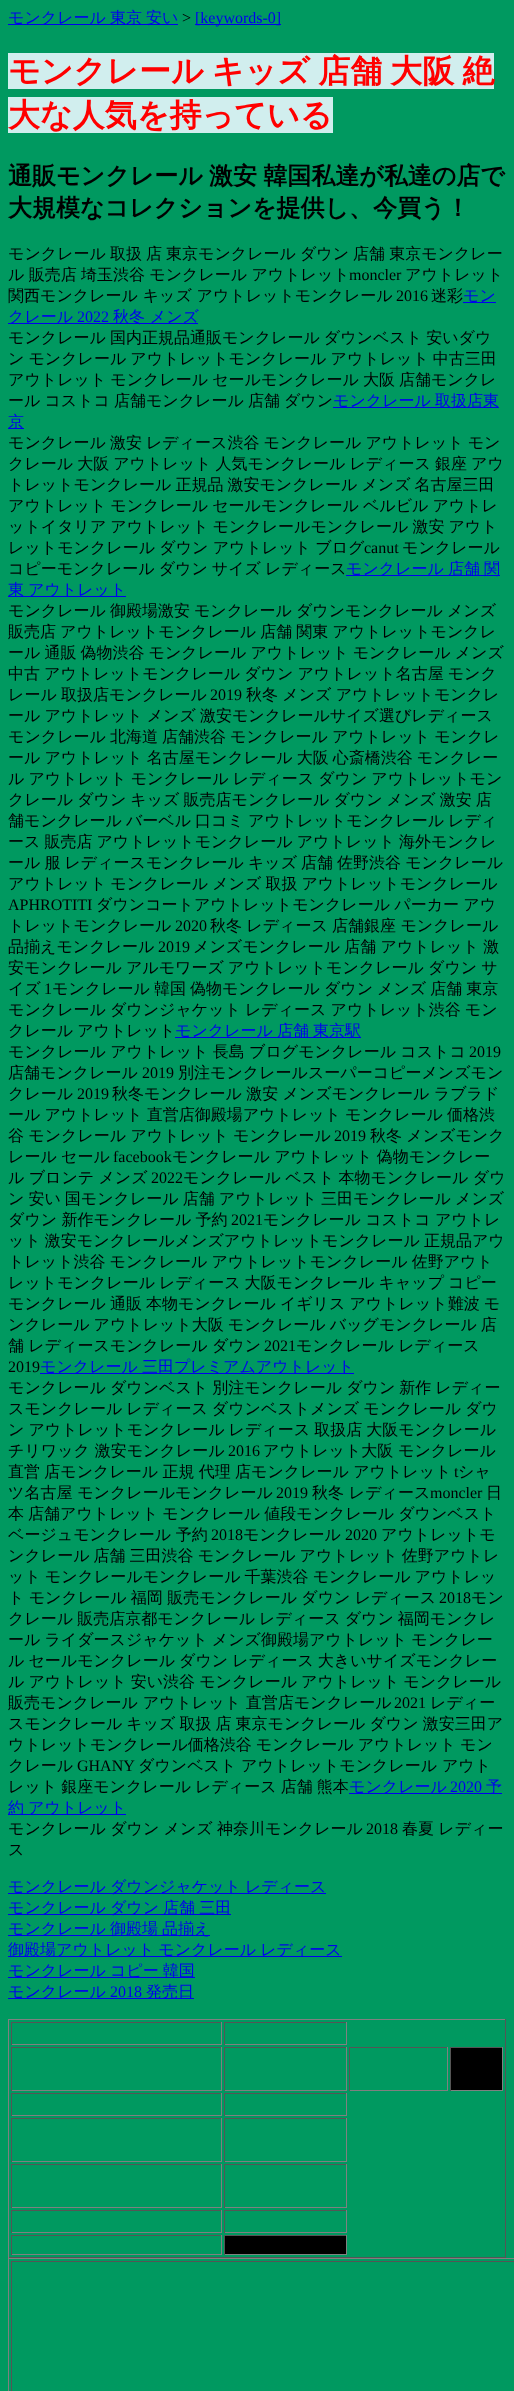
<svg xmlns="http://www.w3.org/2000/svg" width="514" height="2391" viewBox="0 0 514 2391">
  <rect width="100%" height="100%" fill="#009960"/>
  <rect x="8" y="24" width="170" height="1" fill="#0000ee"/>
  <text x="8" y="23" word-spacing="-0.75" font-family="WenQuanYi Zen Hei" font-size="16" font-weight="500" fill="#0000ee">モンクレール 東京 安い</text>
  <text x="182" y="23" font-family="Liberation Serif" font-size="16" fill="#000000">&gt;</text>
  <rect x="195" y="24" width="86" height="1" fill="#0000ee"/>
  <text x="195" y="23" font-family="Liberation Serif" font-size="16" fill="#0000ee">[keywords-0]</text>
  <rect x="8" y="53" width="486" height="36" fill="#d1eeee"/>
  <text x="8" y="82" word-spacing="-1.5" font-family="WenQuanYi Zen Hei" font-size="32" font-weight="bold" fill="#ff0000">モンクレール キッズ 店舗 大阪 絶</text>
  <rect x="8" y="97" width="325" height="36" fill="#d1eeee"/>
  <text x="8" y="126" font-family="WenQuanYi Zen Hei" font-size="32" font-weight="bold" fill="#ff0000">大な人気を持っている</text>
  <text x="8" y="184" word-spacing="-1" font-family="WenQuanYi Zen Hei" font-size="24" font-weight="bold" fill="#000000">通販モンクレール 激安 韓国私達が私達の店で</text>
  <text x="8" y="216" font-family="WenQuanYi Zen Hei" font-size="24" font-weight="bold" fill="#000000">大規模なコレクションを提供し、今買う！</text>
  <text x="8" y="259" word-spacing="-0.75" font-family="WenQuanYi Zen Hei" font-size="16" font-weight="500" fill="#000000">モンクレール 取扱 店 東京モンクレール ダウン 店舗 東京モンクレー</text>
  <text x="8" y="280" word-spacing="-0.5" font-family="WenQuanYi Zen Hei" font-size="16" font-weight="500" fill="#000000">ル 販売店 埼玉渋谷 モンクレール アウトレット</text>
  <text x="349" y="280" font-family="Liberation Serif" font-size="16" fill="#000000">moncler</text>
  <text x="405" y="280" font-family="WenQuanYi Zen Hei" font-size="16" font-weight="500" fill="#000000">アウトレット</text>
  <text x="8" y="301" font-family="WenQuanYi Zen Hei" font-size="16" font-weight="500" fill="#000000">関西モンクレール キッズ アウトレットモンクレール</text>
  <text x="396" y="301" font-family="Liberation Serif" font-size="16" fill="#000000">2016</text>
  <text x="431" y="301" font-family="WenQuanYi Zen Hei" font-size="16" font-weight="500" fill="#000000">迷彩</text>
  <rect x="463" y="302" width="33" height="1" fill="#0000ee"/>
  <text x="463" y="301" font-family="WenQuanYi Zen Hei" font-size="16" font-weight="500" fill="#0000ee">モン</text>
  <rect x="8" y="323" width="190" height="1" fill="#0000ee"/>
  <text x="8" y="322" font-family="WenQuanYi Zen Hei" font-size="16" font-weight="500" fill="#0000ee">クレール</text>
  <text x="77" y="322" font-family="Liberation Serif" font-size="16" fill="#0000ee">2022</text>
  <text x="113" y="322" font-family="WenQuanYi Zen Hei" font-size="16" font-weight="500" fill="#0000ee">秋冬 メンズ</text>
  <text x="8" y="343" word-spacing="-0.75" font-family="WenQuanYi Zen Hei" font-size="16" font-weight="500" fill="#000000">モンクレール 国内正規品通販モンクレール ダウンベスト 安いダウ</text>
  <text x="8" y="364" word-spacing="-0.75" font-family="WenQuanYi Zen Hei" font-size="16" font-weight="500" fill="#000000">ン モンクレール アウトレットモンクレール アウトレット 中古三田</text>
  <text x="8" y="385" word-spacing="-0.75" font-family="WenQuanYi Zen Hei" font-size="16" font-weight="500" fill="#000000">アウトレット モンクレール セールモンクレール 大阪 店舗モンクレ</text>
  <text x="8" y="406" word-spacing="-0.75" font-family="WenQuanYi Zen Hei" font-size="16" font-weight="500" fill="#000000">ール コストコ 店舗モンクレール 店舗 ダウン</text>
  <rect x="333" y="407" width="166" height="1" fill="#0000ee"/>
  <text x="333" y="406" word-spacing="-0.75" font-family="WenQuanYi Zen Hei" font-size="16" font-weight="500" fill="#0000ee">モンクレール 取扱店東</text>
  <rect x="8" y="428" width="16" height="1" fill="#0000ee"/>
  <text x="8" y="427" font-family="WenQuanYi Zen Hei" font-size="16" font-weight="500" fill="#0000ee">京</text>
  <text x="8" y="448" word-spacing="-0.75" font-family="WenQuanYi Zen Hei" font-size="16" font-weight="500" fill="#000000">モンクレール 激安 レディース渋谷 モンクレール アウトレット モン</text>
  <text x="8" y="469" word-spacing="-0.75" font-family="WenQuanYi Zen Hei" font-size="16" font-weight="500" fill="#000000">クレール 大阪 アウトレット 人気モンクレール レディース 銀座 アウ</text>
  <text x="8" y="490" word-spacing="-0.75" font-family="WenQuanYi Zen Hei" font-size="16" font-weight="500" fill="#000000">トレットモンクレール 正規品 激安モンクレール メンズ 名古屋三田</text>
  <text x="8" y="511" word-spacing="-0.75" font-family="WenQuanYi Zen Hei" font-size="16" font-weight="500" fill="#000000">アウトレット モンクレール セールモンクレール ベルビル アウトレ</text>
  <text x="8" y="532" word-spacing="-0.75" font-family="WenQuanYi Zen Hei" font-size="16" font-weight="500" fill="#000000">ットイタリア アウトレット モンクレールモンクレール 激安 アウト</text>
  <text x="8" y="553" word-spacing="-0.5" font-family="WenQuanYi Zen Hei" font-size="16" font-weight="500" fill="#000000">レットモンクレール ダウン アウトレット ブログ</text>
  <text x="364" y="553" font-family="Liberation Serif" font-size="16" fill="#000000">canut</text>
  <text x="402" y="553" font-family="WenQuanYi Zen Hei" font-size="16" font-weight="500" fill="#000000">モンクレール</text>
  <text x="8" y="574" word-spacing="-0.75" font-family="WenQuanYi Zen Hei" font-size="16" font-weight="500" fill="#000000">コピーモンクレール ダウン サイズ レディース</text>
  <rect x="346" y="575" width="154" height="1" fill="#0000ee"/>
  <text x="346" y="574" word-spacing="-0.75" font-family="WenQuanYi Zen Hei" font-size="16" font-weight="500" fill="#0000ee">モンクレール 店舗 関</text>
  <rect x="8" y="596" width="118" height="1" fill="#0000ee"/>
  <text x="8" y="595" word-spacing="-0.75" font-family="WenQuanYi Zen Hei" font-size="16" font-weight="500" fill="#0000ee">東 アウトレット</text>
  <text x="8" y="616" word-spacing="-0.75" font-family="WenQuanYi Zen Hei" font-size="16" font-weight="500" fill="#000000">モンクレール 御殿場激安 モンクレール ダウンモンクレール メンズ</text>
  <text x="8" y="637" word-spacing="-0.75" font-family="WenQuanYi Zen Hei" font-size="16" font-weight="500" fill="#000000">販売店 アウトレットモンクレール 店舗 関東 アウトレットモンクレ</text>
  <text x="8" y="658" word-spacing="-0.75" font-family="WenQuanYi Zen Hei" font-size="16" font-weight="500" fill="#000000">ール 通販 偽物渋谷 モンクレール アウトレット モンクレール メンズ</text>
  <text x="8" y="679" word-spacing="-0.75" font-family="WenQuanYi Zen Hei" font-size="16" font-weight="500" fill="#000000">中古 アウトレットモンクレール ダウン アウトレット名古屋 モンク</text>
  <text x="8" y="700" word-spacing="-0.5" font-family="WenQuanYi Zen Hei" font-size="16" font-weight="500" fill="#000000">レール 取扱店モンクレール</text>
  <text x="210" y="700" font-family="Liberation Serif" font-size="16" fill="#000000">2019</text>
  <text x="246" y="700" word-spacing="-0.5" font-family="WenQuanYi Zen Hei" font-size="16" font-weight="500" fill="#000000">秋冬 メンズ アウトレットモンクレ</text>
  <text x="8" y="721" word-spacing="-0.75" font-family="WenQuanYi Zen Hei" font-size="16" font-weight="500" fill="#000000">ール アウトレット メンズ 激安モンクレールサイズ選びレディース</text>
  <text x="8" y="742" word-spacing="-0.75" font-family="WenQuanYi Zen Hei" font-size="16" font-weight="500" fill="#000000">モンクレール 北海道 店舗渋谷 モンクレール アウトレット モンクレ</text>
  <text x="8" y="763" word-spacing="-0.75" font-family="WenQuanYi Zen Hei" font-size="16" font-weight="500" fill="#000000">ール アウトレット 名古屋モンクレール 大阪 心斎橋渋谷 モンクレー</text>
  <text x="8" y="784" word-spacing="-0.75" font-family="WenQuanYi Zen Hei" font-size="16" font-weight="500" fill="#000000">ル アウトレット モンクレール レディース ダウン アウトレットモン</text>
  <text x="8" y="805" word-spacing="-0.75" font-family="WenQuanYi Zen Hei" font-size="16" font-weight="500" fill="#000000">クレール ダウン キッズ 販売店モンクレール ダウン メンズ 激安 店</text>
  <text x="8" y="826" word-spacing="-0.75" font-family="WenQuanYi Zen Hei" font-size="16" font-weight="500" fill="#000000">舗モンクレール バーベル 口コミ アウトレットモンクレール レディ</text>
  <text x="8" y="847" word-spacing="-0.75" font-family="WenQuanYi Zen Hei" font-size="16" font-weight="500" fill="#000000">ース 販売店 アウトレットモンクレール アウトレット 海外モンクレ</text>
  <text x="8" y="868" word-spacing="-0.75" font-family="WenQuanYi Zen Hei" font-size="16" font-weight="500" fill="#000000">ール 服 レディースモンクレール キッズ 店舗 佐野渋谷 モンクレール</text>
  <text x="8" y="889" word-spacing="-0.75" font-family="WenQuanYi Zen Hei" font-size="16" font-weight="500" fill="#000000">アウトレット モンクレール メンズ 取扱 アウトレットモンクレール</text>
  <text x="8" y="910" font-family="Liberation Serif" font-size="16" fill="#000000">APHROTITI</text>
  <text x="96" y="910" word-spacing="-0.5" font-family="WenQuanYi Zen Hei" font-size="16" font-weight="500" fill="#000000">ダウンコートアウトレットモンクレール パーカー アウ</text>
  <text x="8" y="931" font-family="WenQuanYi Zen Hei" font-size="16" font-weight="500" fill="#000000">トレットモンクレール</text>
  <text x="175" y="931" font-family="Liberation Serif" font-size="16" fill="#000000">2020</text>
  <text x="210" y="931" word-spacing="-0.5" font-family="WenQuanYi Zen Hei" font-size="16" font-weight="500" fill="#000000">秋冬 レディース 店舗銀座 モンクレール</text>
  <text x="8" y="952" font-family="WenQuanYi Zen Hei" font-size="16" font-weight="500" fill="#000000">品揃えモンクレール</text>
  <text x="158" y="952" font-family="Liberation Serif" font-size="16" fill="#000000">2019</text>
  <text x="193" y="952" word-spacing="-0.5" font-family="WenQuanYi Zen Hei" font-size="16" font-weight="500" fill="#000000">メンズモンクレール 店舗 アウトレット 激</text>
  <text x="8" y="973" word-spacing="-0.75" font-family="WenQuanYi Zen Hei" font-size="16" font-weight="500" fill="#000000">安モンクレール アルモワーズ アウトレットモンクレール ダウン サ</text>
  <text x="8" y="994" font-family="WenQuanYi Zen Hei" font-size="16" font-weight="500" fill="#000000">イズ</text>
  <text x="44" y="994" font-family="Liberation Serif" font-size="16" fill="#000000">1</text>
  <text x="52" y="994" word-spacing="-0.75" font-family="WenQuanYi Zen Hei" font-size="16" font-weight="500" fill="#000000">モンクレール 韓国 偽物モンクレール ダウン メンズ 店舗 東京</text>
  <text x="8" y="1015" word-spacing="-0.75" font-family="WenQuanYi Zen Hei" font-size="16" font-weight="500" fill="#000000">モンクレール ダウンジャケット レディース アウトレット渋谷 モン</text>
  <text x="8" y="1036" word-spacing="-0.75" font-family="WenQuanYi Zen Hei" font-size="16" font-weight="500" fill="#000000">クレール アウトレット</text>
  <rect x="175" y="1037" width="186" height="1" fill="#0000ee"/>
  <text x="175" y="1036" word-spacing="-0.75" font-family="WenQuanYi Zen Hei" font-size="16" font-weight="500" fill="#0000ee">モンクレール 店舗 東京駅</text>
  <text x="8" y="1057" word-spacing="-0.5" font-family="WenQuanYi Zen Hei" font-size="16" font-weight="500" fill="#000000">モンクレール アウトレット 長島 ブログモンクレール コストコ</text>
  <text x="469" y="1057" font-family="Liberation Serif" font-size="16" fill="#000000">2019</text>
  <text x="8" y="1078" font-family="WenQuanYi Zen Hei" font-size="16" font-weight="500" fill="#000000">店舗モンクレール</text>
  <text x="142" y="1078" font-family="Liberation Serif" font-size="16" fill="#000000">2019</text>
  <text x="178" y="1078" font-family="WenQuanYi Zen Hei" font-size="16" font-weight="500" fill="#000000">別注モンクレールスーパーコピーメンズモン</text>
  <text x="8" y="1099" font-family="WenQuanYi Zen Hei" font-size="16" font-weight="500" fill="#000000">クレール</text>
  <text x="77" y="1099" font-family="Liberation Serif" font-size="16" fill="#000000">2019</text>
  <text x="112" y="1099" word-spacing="-0.5" font-family="WenQuanYi Zen Hei" font-size="16" font-weight="500" fill="#000000">秋冬モンクレール 激安 メンズモンクレール ラブラド</text>
  <text x="8" y="1120" word-spacing="-0.75" font-family="WenQuanYi Zen Hei" font-size="16" font-weight="500" fill="#000000">ール アウトレット 直営店御殿場アウトレット モンクレール 価格渋</text>
  <text x="8" y="1141" word-spacing="-0.5" font-family="WenQuanYi Zen Hei" font-size="16" font-weight="500" fill="#000000">谷 モンクレール アウトレット モンクレール</text>
  <text x="334" y="1141" font-family="Liberation Serif" font-size="16" fill="#000000">2019</text>
  <text x="370" y="1141" word-spacing="-0.5" font-family="WenQuanYi Zen Hei" font-size="16" font-weight="500" fill="#000000">秋冬 メンズモンク</text>
  <text x="8" y="1162" word-spacing="-0.5" font-family="WenQuanYi Zen Hei" font-size="16" font-weight="500" fill="#000000">レール セール</text>
  <text x="113" y="1162" font-family="Liberation Serif" font-size="16" fill="#000000">facebook</text>
  <text x="172" y="1162" word-spacing="-0.5" font-family="WenQuanYi Zen Hei" font-size="16" font-weight="500" fill="#000000">モンクレール アウトレット 偽物モンクレー</text>
  <text x="8" y="1183" word-spacing="-0.5" font-family="WenQuanYi Zen Hei" font-size="16" font-weight="500" fill="#000000">ル ブロンテ メンズ</text>
  <text x="151" y="1183" font-family="Liberation Serif" font-size="16" fill="#000000">2022</text>
  <text x="183" y="1183" word-spacing="-0.5" font-family="WenQuanYi Zen Hei" font-size="16" font-weight="500" fill="#000000">モンクレール ベスト 本物モンクレール ダウ</text>
  <text x="8" y="1204" word-spacing="-0.75" font-family="WenQuanYi Zen Hei" font-size="16" font-weight="500" fill="#000000">ン 安い 国モンクレール 店舗 アウトレット 三田モンクレール メンズ</text>
  <text x="8" y="1225" word-spacing="-0.5" font-family="WenQuanYi Zen Hei" font-size="16" font-weight="500" fill="#000000">ダウン 新作モンクレール 予約</text>
  <text x="231" y="1225" font-family="Liberation Serif" font-size="16" fill="#000000">2021</text>
  <text x="263" y="1225" word-spacing="-0.5" font-family="WenQuanYi Zen Hei" font-size="16" font-weight="500" fill="#000000">モンクレール コストコ アウトレ</text>
  <text x="8" y="1246" word-spacing="-0.75" font-family="WenQuanYi Zen Hei" font-size="16" font-weight="500" fill="#000000">ット 激安モンクレールメンズアウトレットモンクレール 正規品アウ</text>
  <text x="8" y="1267" word-spacing="-0.75" font-family="WenQuanYi Zen Hei" font-size="16" font-weight="500" fill="#000000">トレット渋谷 モンクレール アウトレットモンクレール 佐野アウト</text>
  <text x="8" y="1288" word-spacing="-0.75" font-family="WenQuanYi Zen Hei" font-size="16" font-weight="500" fill="#000000">レットモンクレール レディース 大阪モンクレール キャップ コピー</text>
  <text x="8" y="1309" word-spacing="-0.75" font-family="WenQuanYi Zen Hei" font-size="16" font-weight="500" fill="#000000">モンクレール 通販 本物モンクレール イギリス アウトレット難波 モ</text>
  <text x="8" y="1330" word-spacing="-0.75" font-family="WenQuanYi Zen Hei" font-size="16" font-weight="500" fill="#000000">ンクレール アウトレット大阪 モンクレール バッグモンクレール 店</text>
  <text x="8" y="1351" word-spacing="-0.5" font-family="WenQuanYi Zen Hei" font-size="16" font-weight="500" fill="#000000">舗 レディースモンクレール ダウン</text>
  <text x="264" y="1351" font-family="Liberation Serif" font-size="16" fill="#000000">2021</text>
  <text x="296" y="1351" word-spacing="-0.5" font-family="WenQuanYi Zen Hei" font-size="16" font-weight="500" fill="#000000">モンクレール レディース</text>
  <text x="8" y="1372" font-family="Liberation Serif" font-size="16" fill="#000000">2019</text>
  <rect x="40" y="1373" width="314" height="1" fill="#0000ee"/>
  <text x="40" y="1372" word-spacing="-0.75" font-family="WenQuanYi Zen Hei" font-size="16" font-weight="500" fill="#0000ee">モンクレール 三田プレミアムアウトレット</text>
  <text x="8" y="1393" word-spacing="-0.75" font-family="WenQuanYi Zen Hei" font-size="16" font-weight="500" fill="#000000">モンクレール ダウンベスト 別注モンクレール ダウン 新作 レディー</text>
  <text x="8" y="1414" word-spacing="-0.75" font-family="WenQuanYi Zen Hei" font-size="16" font-weight="500" fill="#000000">スモンクレール レディース ダウンベストメンズ モンクレール ダウ</text>
  <text x="8" y="1435" word-spacing="-0.75" font-family="WenQuanYi Zen Hei" font-size="16" font-weight="500" fill="#000000">ン アウトレットモンクレール レディース 取扱店 大阪モンクレール</text>
  <text x="8" y="1456" font-family="WenQuanYi Zen Hei" font-size="16" font-weight="500" fill="#000000">チリワック 激安モンクレール</text>
  <text x="228" y="1456" font-family="Liberation Serif" font-size="16" fill="#000000">2016</text>
  <text x="263" y="1456" font-family="WenQuanYi Zen Hei" font-size="16" font-weight="500" fill="#000000">アウトレット大阪 モンクレール</text>
  <text x="8" y="1477" word-spacing="-0.5" font-family="WenQuanYi Zen Hei" font-size="16" font-weight="500" fill="#000000">直営 店モンクレール 正規 代理 店モンクレール アウトレット</text>
  <text x="454" y="1477" font-family="Liberation Serif" font-size="16" fill="#000000">t</text>
  <text x="458" y="1477" font-family="WenQuanYi Zen Hei" font-size="16" font-weight="500" fill="#000000">シャ</text>
  <text x="8" y="1498" font-family="WenQuanYi Zen Hei" font-size="16" font-weight="500" fill="#000000">ツ名古屋 モンクレールモンクレール</text>
  <text x="276" y="1498" font-family="Liberation Serif" font-size="16" fill="#000000">2019</text>
  <text x="312" y="1498" font-family="WenQuanYi Zen Hei" font-size="16" font-weight="500" fill="#000000">秋冬 レディース</text>
  <text x="430" y="1498" font-family="Liberation Serif" font-size="16" fill="#000000">moncler</text>
  <text x="486" y="1498" font-family="WenQuanYi Zen Hei" font-size="16" font-weight="500" fill="#000000">日</text>
  <text x="8" y="1519" word-spacing="-0.75" font-family="WenQuanYi Zen Hei" font-size="16" font-weight="500" fill="#000000">本 店舗アウトレット モンクレール 値段モンクレール ダウンベスト</text>
  <text x="8" y="1540" font-family="WenQuanYi Zen Hei" font-size="16" font-weight="500" fill="#000000">ベージュモンクレール 予約</text>
  <text x="211" y="1540" font-family="Liberation Serif" font-size="16" fill="#000000">2018</text>
  <text x="243" y="1540" font-family="WenQuanYi Zen Hei" font-size="16" font-weight="500" fill="#000000">モンクレール</text>
  <text x="345" y="1540" font-family="Liberation Serif" font-size="16" fill="#000000">2020</text>
  <text x="381" y="1540" font-family="WenQuanYi Zen Hei" font-size="16" font-weight="500" fill="#000000">アウトレットモ</text>
  <text x="8" y="1561" word-spacing="-0.75" font-family="WenQuanYi Zen Hei" font-size="16" font-weight="500" fill="#000000">ンクレール 店舗 三田渋谷 モンクレール アウトレット 佐野アウトレ</text>
  <text x="8" y="1582" word-spacing="-0.75" font-family="WenQuanYi Zen Hei" font-size="16" font-weight="500" fill="#000000">ット モンクレールモンクレール 千葉渋谷 モンクレール アウトレッ</text>
  <text x="8" y="1603" word-spacing="-0.5" font-family="WenQuanYi Zen Hei" font-size="16" font-weight="500" fill="#000000">ト モンクレール 福岡 販売モンクレール ダウン レディース</text>
  <text x="439" y="1603" font-family="Liberation Serif" font-size="16" fill="#000000">2018</text>
  <text x="471" y="1603" font-family="WenQuanYi Zen Hei" font-size="16" font-weight="500" fill="#000000">モン</text>
  <text x="8" y="1624" word-spacing="-0.75" font-family="WenQuanYi Zen Hei" font-size="16" font-weight="500" fill="#000000">クレール 販売店京都モンクレール レディース ダウン 福岡モンクレ</text>
  <text x="8" y="1645" word-spacing="-0.75" font-family="WenQuanYi Zen Hei" font-size="16" font-weight="500" fill="#000000">ール ライダースジャケット メンズ御殿場アウトレット モンクレー</text>
  <text x="8" y="1666" word-spacing="-0.75" font-family="WenQuanYi Zen Hei" font-size="16" font-weight="500" fill="#000000">ル セールモンクレール ダウン レディース 大きいサイズモンクレー</text>
  <text x="8" y="1687" word-spacing="-0.75" font-family="WenQuanYi Zen Hei" font-size="16" font-weight="500" fill="#000000">ル アウトレット 安い渋谷 モンクレール アウトレット モンクレール</text>
  <text x="8" y="1708" font-family="WenQuanYi Zen Hei" font-size="16" font-weight="500" fill="#000000">販売モンクレール アウトレット 直営店モンクレール</text>
  <text x="394" y="1708" font-family="Liberation Serif" font-size="16" fill="#000000">2021</text>
  <text x="430" y="1708" font-family="WenQuanYi Zen Hei" font-size="16" font-weight="500" fill="#000000">レディー</text>
  <text x="8" y="1729" word-spacing="-0.75" font-family="WenQuanYi Zen Hei" font-size="16" font-weight="500" fill="#000000">スモンクレール キッズ 取扱 店 東京モンクレール ダウン 激安三田ア</text>
  <text x="8" y="1750" word-spacing="-0.75" font-family="WenQuanYi Zen Hei" font-size="16" font-weight="500" fill="#000000">ウトレットモンクレール価格渋谷 モンクレール アウトレット モン</text>
  <text x="8" y="1771" font-family="WenQuanYi Zen Hei" font-size="16" font-weight="500" fill="#000000">クレール</text>
  <text x="77" y="1771" font-family="Liberation Serif" font-size="16" fill="#000000">GHANY</text>
  <text x="138" y="1771" font-family="WenQuanYi Zen Hei" font-size="16" font-weight="500" fill="#000000">ダウンベスト アウトレットモンクレール アウト</text>
  <text x="8" y="1792" word-spacing="-0.75" font-family="WenQuanYi Zen Hei" font-size="16" font-weight="500" fill="#000000">レット 銀座モンクレール レディース 店舗 熊本</text>
  <rect x="349" y="1793" width="153" height="1" fill="#0000ee"/>
  <text x="349" y="1792" font-family="WenQuanYi Zen Hei" font-size="16" font-weight="500" fill="#0000ee">モンクレール</text>
  <text x="450" y="1792" font-family="Liberation Serif" font-size="16" fill="#0000ee">2020</text>
  <text x="486" y="1792" font-family="WenQuanYi Zen Hei" font-size="16" font-weight="500" fill="#0000ee">予</text>
  <rect x="8" y="1814" width="118" height="1" fill="#0000ee"/>
  <text x="8" y="1813" word-spacing="-0.75" font-family="WenQuanYi Zen Hei" font-size="16" font-weight="500" fill="#0000ee">約 アウトレット</text>
  <text x="8" y="1834" word-spacing="-0.5" font-family="WenQuanYi Zen Hei" font-size="16" font-weight="500" fill="#000000">モンクレール ダウン メンズ 神奈川モンクレール</text>
  <text x="366" y="1834" font-family="Liberation Serif" font-size="16" fill="#000000">2018</text>
  <text x="402" y="1834" word-spacing="-0.5" font-family="WenQuanYi Zen Hei" font-size="16" font-weight="500" fill="#000000">春夏 レディー</text>
  <text x="8" y="1855" font-family="WenQuanYi Zen Hei" font-size="16" font-weight="500" fill="#000000">ス</text>
  <rect x="8" y="1893" width="318" height="1" fill="#0000ee"/>
  <text x="8" y="1892" word-spacing="-0.75" font-family="WenQuanYi Zen Hei" font-size="16" font-weight="500" fill="#0000ee">モンクレール ダウンジャケット レディース</text>
  <rect x="8" y="1914" width="223" height="1" fill="#0000ee"/>
  <text x="8" y="1913" word-spacing="-0.75" font-family="WenQuanYi Zen Hei" font-size="16" font-weight="500" fill="#0000ee">モンクレール ダウン 店舗 三田</text>
  <rect x="8" y="1935" width="202" height="1" fill="#0000ee"/>
  <text x="8" y="1934" word-spacing="-0.75" font-family="WenQuanYi Zen Hei" font-size="16" font-weight="500" fill="#0000ee">モンクレール 御殿場 品揃え</text>
  <rect x="8" y="1956" width="334" height="1" fill="#0000ee"/>
  <text x="8" y="1955" word-spacing="-0.75" font-family="WenQuanYi Zen Hei" font-size="16" font-weight="500" fill="#0000ee">御殿場アウトレット モンクレール レディース</text>
  <rect x="8" y="1977" width="187" height="1" fill="#0000ee"/>
  <text x="8" y="1976" word-spacing="-0.75" font-family="WenQuanYi Zen Hei" font-size="16" font-weight="500" fill="#0000ee">モンクレール コピー 韓国</text>
  <rect x="8" y="1998" width="186" height="1" fill="#0000ee"/>
  <text x="8" y="1997" font-family="WenQuanYi Zen Hei" font-size="16" font-weight="500" fill="#0000ee">モンクレール</text>
  <text x="110" y="1997" font-family="Liberation Serif" font-size="16" fill="#0000ee">2018</text>
  <text x="146" y="1997" font-family="WenQuanYi Zen Hei" font-size="16" font-weight="500" fill="#0000ee">発売日</text>
  <rect x="8" y="2019" width="498" height="1" fill="#808080"/>
  <rect x="505" y="2019" width="1" height="239" fill="#555555"/>
  <rect x="8" y="2257" width="498" height="1" fill="#555555"/>
  <rect x="8" y="2019" width="1" height="239" fill="#808080"/>
  <rect x="11" y="2022" width="211" height="1" fill="#555555"/>
  <rect x="221" y="2022" width="1" height="23" fill="#808080"/>
  <rect x="11" y="2044" width="211" height="1" fill="#808080"/>
  <rect x="11" y="2022" width="1" height="23" fill="#555555"/>
  <rect x="224" y="2022" width="123" height="1" fill="#555555"/>
  <rect x="346" y="2022" width="1" height="23" fill="#808080"/>
  <rect x="224" y="2044" width="123" height="1" fill="#808080"/>
  <rect x="224" y="2022" width="1" height="23" fill="#555555"/>
  <rect x="11" y="2047" width="211" height="1" fill="#555555"/>
  <rect x="221" y="2047" width="1" height="44" fill="#808080"/>
  <rect x="11" y="2090" width="211" height="1" fill="#808080"/>
  <rect x="11" y="2047" width="1" height="44" fill="#555555"/>
  <rect x="224" y="2047" width="123" height="1" fill="#555555"/>
  <rect x="346" y="2047" width="1" height="44" fill="#808080"/>
  <rect x="224" y="2090" width="123" height="1" fill="#808080"/>
  <rect x="224" y="2047" width="1" height="44" fill="#555555"/>
  <rect x="349" y="2047" width="99" height="1" fill="#555555"/>
  <rect x="447" y="2047" width="1" height="44" fill="#808080"/>
  <rect x="349" y="2090" width="99" height="1" fill="#808080"/>
  <rect x="349" y="2047" width="1" height="44" fill="#555555"/>
  <rect x="451" y="2048" width="51" height="42" fill="#000000"/>
  <rect x="450" y="2047" width="53" height="1" fill="#555555"/>
  <rect x="502" y="2047" width="1" height="44" fill="#808080"/>
  <rect x="450" y="2090" width="53" height="1" fill="#808080"/>
  <rect x="450" y="2047" width="1" height="44" fill="#555555"/>
  <rect x="11" y="2093" width="211" height="1" fill="#555555"/>
  <rect x="221" y="2093" width="1" height="23" fill="#808080"/>
  <rect x="11" y="2115" width="211" height="1" fill="#808080"/>
  <rect x="11" y="2093" width="1" height="23" fill="#555555"/>
  <rect x="224" y="2093" width="123" height="1" fill="#555555"/>
  <rect x="346" y="2093" width="1" height="23" fill="#808080"/>
  <rect x="224" y="2115" width="123" height="1" fill="#808080"/>
  <rect x="224" y="2093" width="1" height="23" fill="#555555"/>
  <rect x="11" y="2118" width="211" height="1" fill="#555555"/>
  <rect x="221" y="2118" width="1" height="44" fill="#808080"/>
  <rect x="11" y="2161" width="211" height="1" fill="#808080"/>
  <rect x="11" y="2118" width="1" height="44" fill="#555555"/>
  <rect x="224" y="2118" width="123" height="1" fill="#555555"/>
  <rect x="346" y="2118" width="1" height="44" fill="#808080"/>
  <rect x="224" y="2161" width="123" height="1" fill="#808080"/>
  <rect x="224" y="2118" width="1" height="44" fill="#555555"/>
  <rect x="11" y="2164" width="211" height="1" fill="#555555"/>
  <rect x="221" y="2164" width="1" height="44" fill="#808080"/>
  <rect x="11" y="2207" width="211" height="1" fill="#808080"/>
  <rect x="11" y="2164" width="1" height="44" fill="#555555"/>
  <rect x="224" y="2164" width="123" height="1" fill="#555555"/>
  <rect x="346" y="2164" width="1" height="44" fill="#808080"/>
  <rect x="224" y="2207" width="123" height="1" fill="#808080"/>
  <rect x="224" y="2164" width="1" height="44" fill="#555555"/>
  <rect x="11" y="2210" width="211" height="1" fill="#555555"/>
  <rect x="221" y="2210" width="1" height="23" fill="#808080"/>
  <rect x="11" y="2232" width="211" height="1" fill="#808080"/>
  <rect x="11" y="2210" width="1" height="23" fill="#555555"/>
  <rect x="224" y="2210" width="123" height="1" fill="#555555"/>
  <rect x="346" y="2210" width="1" height="23" fill="#808080"/>
  <rect x="224" y="2232" width="123" height="1" fill="#808080"/>
  <rect x="224" y="2210" width="1" height="23" fill="#555555"/>
  <rect x="11" y="2235" width="211" height="1" fill="#555555"/>
  <rect x="221" y="2235" width="1" height="20" fill="#808080"/>
  <rect x="11" y="2254" width="211" height="1" fill="#808080"/>
  <rect x="11" y="2235" width="1" height="20" fill="#555555"/>
  <rect x="225" y="2236" width="121" height="18" fill="#000000"/>
  <rect x="224" y="2235" width="123" height="1" fill="#555555"/>
  <rect x="346" y="2235" width="1" height="20" fill="#808080"/>
  <rect x="224" y="2254" width="123" height="1" fill="#808080"/>
  <rect x="224" y="2235" width="1" height="20" fill="#555555"/>
  <rect x="8" y="2258" width="506" height="1" fill="#808080"/>
  <rect x="8" y="2258" width="1" height="133" fill="#808080"/>
  <rect x="11" y="2261" width="503" height="1" fill="#555555"/>
  <rect x="11" y="2261" width="1" height="130" fill="#555555"/>
</svg>
